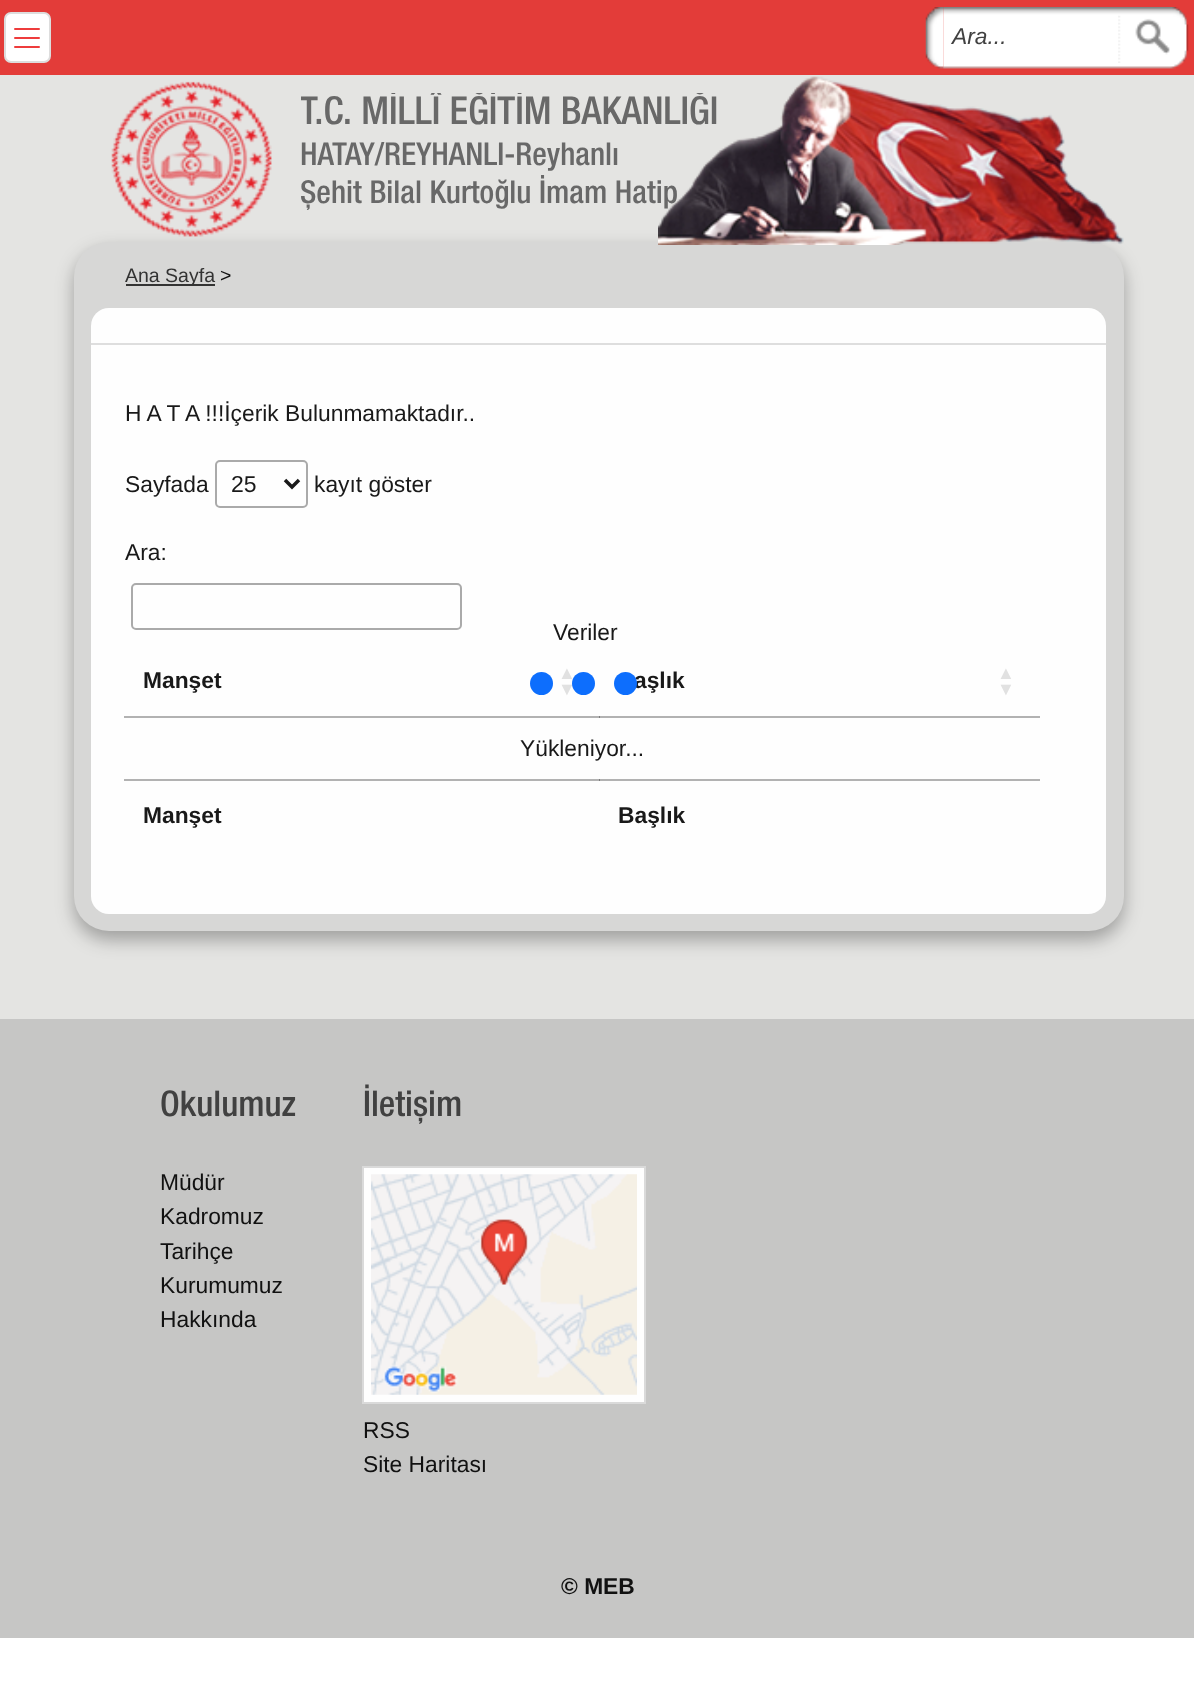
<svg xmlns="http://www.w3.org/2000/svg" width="1194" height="1701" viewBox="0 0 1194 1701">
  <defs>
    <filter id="blur1" x="-50%" y="-200%" width="200%" height="500%"><feGaussianBlur stdDeviation="9"/></filter>
    <clipPath id="clip1"><rect x="301" y="93" width="480" height="136"/></clipPath>
  </defs>
  <rect width="100%" height="100%" fill="#ffffff"/>
  <rect x="0" y="75" width="1194" height="944" fill="#e4e4e2"/>
  <rect x="0" y="0" width="1194" height="75" fill="#e33c39"/>
  <rect x="5" y="13" width="45" height="49" rx="6" fill="#ffffff" stroke="#dddddd" stroke-width="2"/>
  <rect x="14" y="28" width="26" height="2" rx="1" fill="#ee3c3c"/>
  <rect x="14" y="37" width="26" height="2" rx="1" fill="#ee3c3c"/>
  <rect x="14" y="46" width="26" height="2" rx="1" fill="#ee3c3c"/>
  <image x="925" y="7" width="19" height="62" href="img1.png"/>
  <image x="943" y="7" width="246" height="62" href="img2.png"/>
  <text x="952" y="44" font-family="Liberation Sans" font-size="22.8" font-style="italic" fill="#414141">Ara...</text>
  <image x="1118" y="15" width="52" height="48" href="img3.png"/>
  <rect x="74" y="250" width="1050" height="690" rx="35" fill="#000000" fill-opacity="0.3" filter="url(#blur1)"/>
  <image x="111" y="81" width="161" height="156" href="img4.png"/>
  <g clip-path="url(#clip1)">
    <text x="300" y="124" font-family="Helvetica Neue" font-size="38.5" font-weight="500" fill="#686868">T.C. MİLLÎ EĞİTİM BAKANLIĞI</text>
  </g>
  <text x="300" y="165" font-family="Helvetica Neue" font-size="31.5" font-weight="500" fill="#686868">HATAY/REYHANLI-Reyhanlı</text>
  <text x="300" y="203" font-family="Helvetica Neue" font-size="31.5" font-weight="500" fill="#686868">Şehit Bilal Kurtoğlu İmam Hatip</text>
  <rect x="74" y="242" width="1050" height="689" rx="35" fill="#d7d7d6"/>
  <image x="658" y="76" width="466" height="169" href="img5.png"/>
  <rect x="126" y="284" width="89" height="2" fill="#333333"/>
  <text x="125" y="282" font-family="Liberation Sans" font-size="19.5" fill="#333333">Ana Sayfa</text>
  <text x="220" y="282" font-family="Liberation Sans" font-size="19.5" fill="#111111">&gt;</text>
  <rect x="91" y="308" width="1015" height="606" rx="18" fill="#fefefe"/>
  <rect x="124" y="716" width="916" height="2" fill="#b2b2b2"/>
  <rect x="124" y="779" width="916" height="2" fill="#b2b2b2"/>
  <rect x="91" y="343" width="1015" height="2" fill="#dedede"/>
  <text x="125" y="421" font-family="Liberation Sans" font-size="22.8" fill="#191919">H A T A !!!İçerik Bulunmamaktadır..</text>
  <text x="125" y="492" font-family="Liberation Sans" font-size="22.8" fill="#191919">Sayfada</text>
  <rect x="216" y="461" width="91" height="46" rx="4" fill="none" stroke="#aaaaaa" stroke-width="2"/>
  <path d="M285 480L292 487L299 480" fill="none" stroke="#191919" stroke-width="3.5"/>
  <text x="231" y="492" font-family="Liberation Sans" font-size="23" fill="#191919">25</text>
  <text x="314" y="492" font-family="Liberation Sans" font-size="22.8" fill="#191919">kayıt göster</text>
  <text x="125" y="560" font-family="Liberation Sans" font-size="22.8" fill="#191919">Ara:</text>
  <rect x="132" y="584" width="329" height="45" rx="4" fill="none" stroke="#aaaaaa" stroke-width="2"/>
  <text x="553" y="640" font-family="Liberation Sans" font-size="22.8" fill="#191919">Veriler</text>
  <circle cx="541.5" cy="683.5" r="11.5" fill="#0d6efd"/>
  <text x="558" y="679" font-family="Liberation Sans" font-size="18" font-weight="bold" fill="#e1e1e1">▲</text>
  <text x="558" y="695" font-family="Liberation Sans" font-size="18" font-weight="bold" fill="#e1e1e1">▼</text>
  <circle cx="583.5" cy="683.5" r="11.5" fill="#0d6efd"/>
  <text x="634" y="688" font-family="Liberation Sans" font-size="22.8" font-weight="bold" fill="#191919">aşlık</text>
  <circle cx="625.5" cy="683.5" r="11.5" fill="#0d6efd"/>
  <text x="143" y="688" font-family="Liberation Sans" font-size="22.8" font-weight="bold" fill="#191919">Manşet</text>
  <rect x="599" y="716" width="1" height="2" fill="#7d7d7d"/>
  <text x="997" y="679" font-family="Liberation Sans" font-size="18" font-weight="bold" fill="#e1e1e1">▲</text>
  <text x="997" y="695" font-family="Liberation Sans" font-size="18" font-weight="bold" fill="#e1e1e1">▼</text>
  <text x="520" y="756" font-family="Liberation Sans" font-size="22.8" fill="#191919">Yükleniyor...</text>
  <text x="143" y="823" font-family="Liberation Sans" font-size="22.8" font-weight="bold" fill="#191919">Manşet</text>
  <rect x="599" y="779" width="1" height="2" fill="#7d7d7d"/>
  <text x="618" y="823" font-family="Liberation Sans" font-size="22.8" font-weight="bold" fill="#191919">Başlık</text>
  <rect x="0" y="1019" width="1194" height="619" fill="#c6c6c5"/>
  <text x="160" y="1116" font-family="Helvetica Neue" font-size="35.5" font-weight="500" fill="#414141">Okulumuz</text>
  <text x="160" y="1190" font-family="Liberation Sans" font-size="22.8" fill="#111111">Müdür</text>
  <text x="160" y="1224" font-family="Liberation Sans" font-size="22.8" fill="#111111">Kadromuz</text>
  <text x="160" y="1259" font-family="Liberation Sans" font-size="22.8" fill="#111111">Tarihçe</text>
  <text x="160" y="1293" font-family="Liberation Sans" font-size="22.8" fill="#111111">Kurumumuz</text>
  <text x="160" y="1327" font-family="Liberation Sans" font-size="22.8" fill="#111111">Hakkında</text>
  <text x="363" y="1116" font-family="Helvetica Neue" font-size="35.5" font-weight="500" fill="#414141">İletişim</text>
  <rect x="363" y="1167" width="282" height="236" fill="#fefefe" stroke="#dadada" stroke-width="2"/>
  <image x="371" y="1174" width="266" height="221" href="img6.png"/>
  <text x="363" y="1438" font-family="Liberation Sans" font-size="22.8" fill="#111111">RSS</text>
  <text x="363" y="1472" font-family="Liberation Sans" font-size="22.8" fill="#111111">Site Haritası</text>
  <text x="561" y="1594" font-family="Liberation Sans" font-size="22.8" font-weight="bold" fill="#111111">© MEB</text>
</svg>
